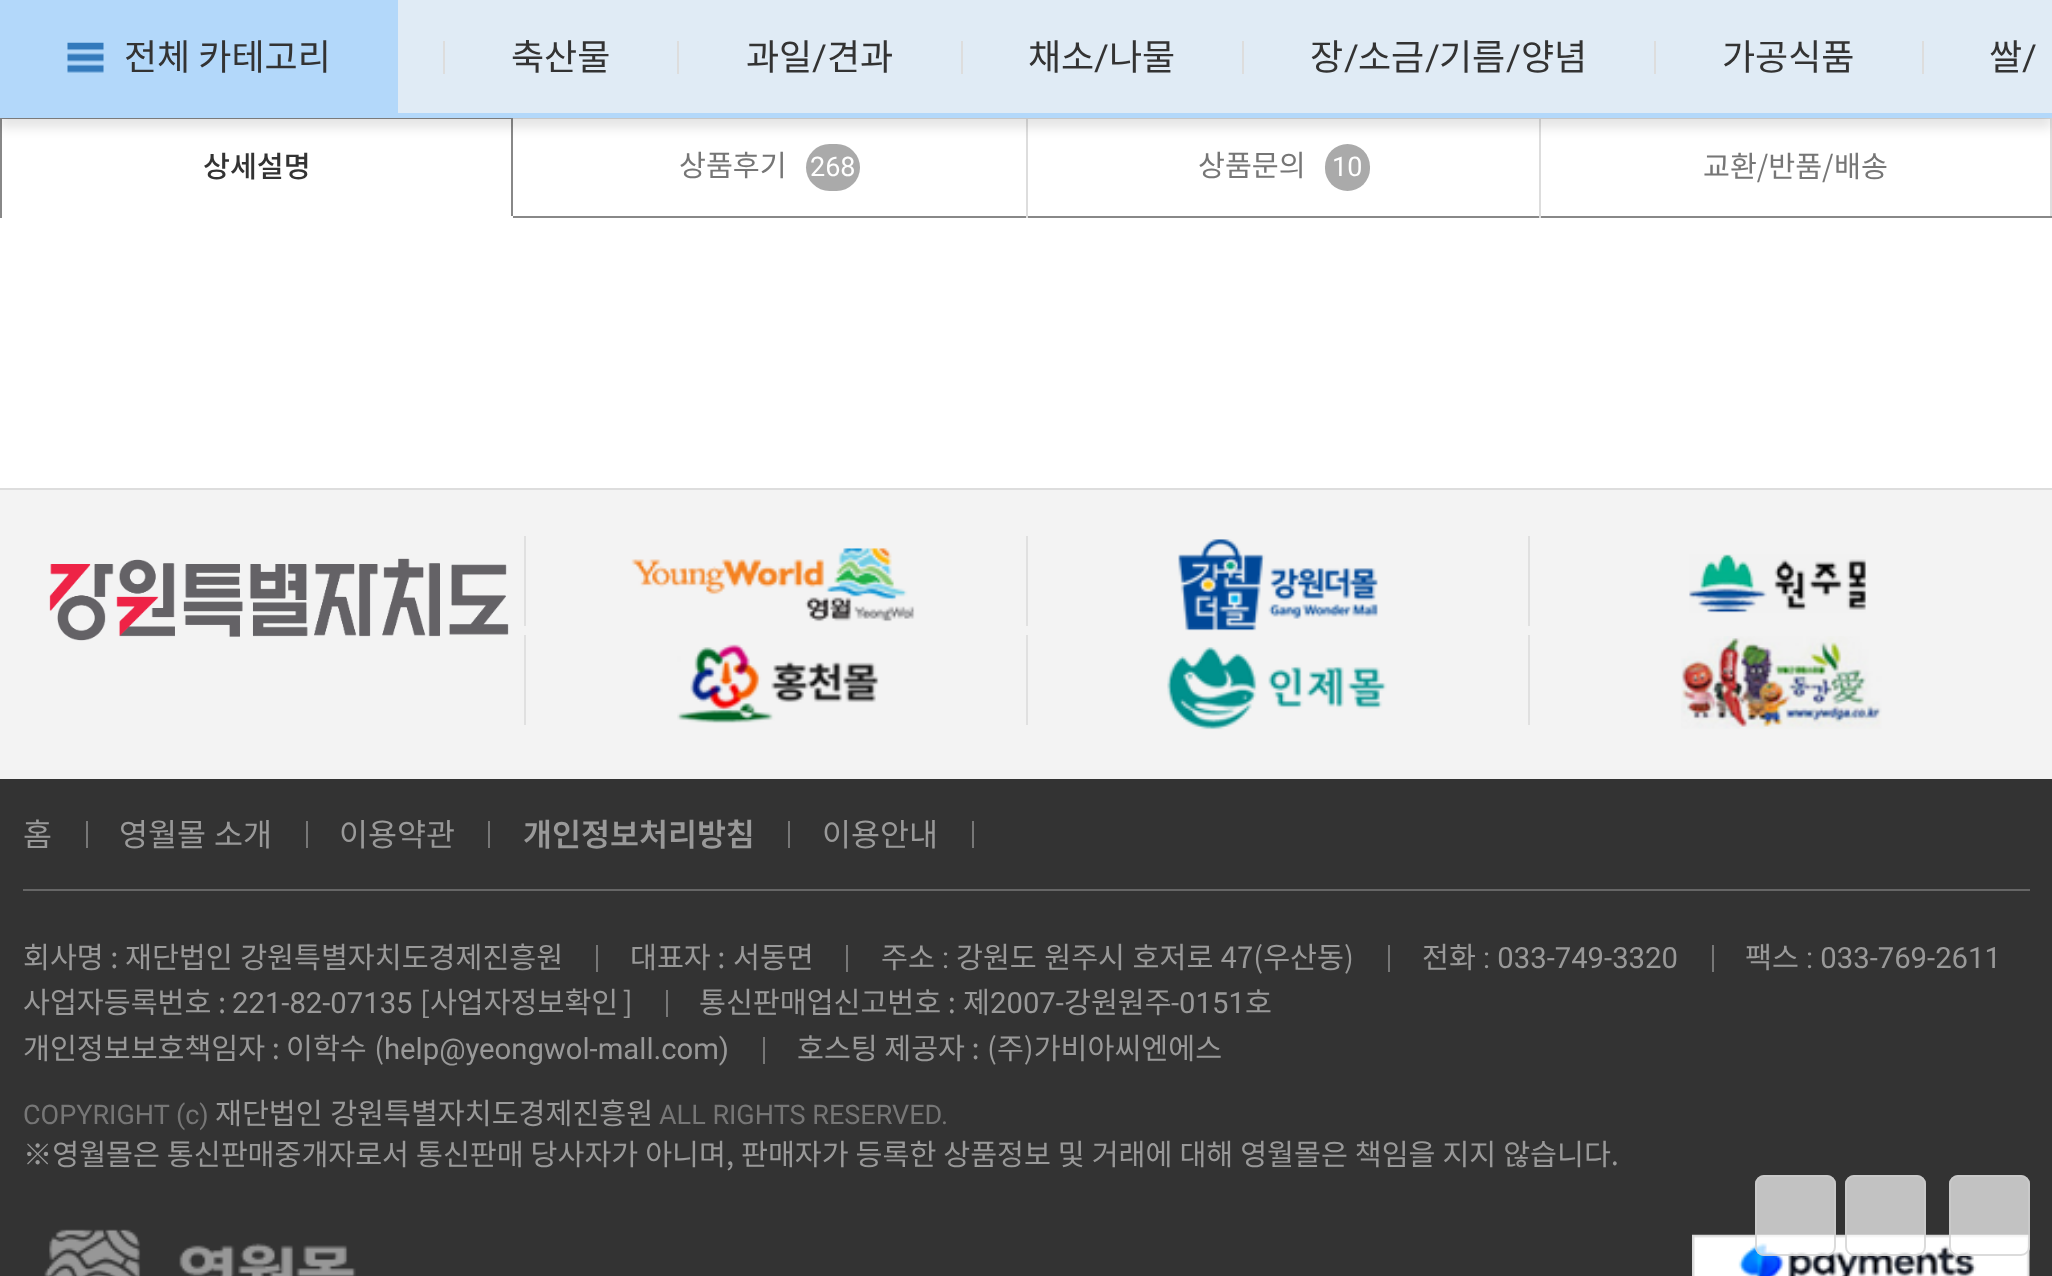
<svg xmlns="http://www.w3.org/2000/svg" width="2052" height="1276" viewBox="0 0 2052 1276">
  <defs>
    <filter id="blur1" x="-50%" y="-200%" width="200%" height="500%"><feGaussianBlur stdDeviation="5.5"/></filter>
  </defs>
  <rect width="100%" height="100%" fill="#ffffff"/>
  <rect x="0" y="118" width="513" height="1" fill="#888888"/>
  <rect x="511" y="117" width="2" height="101" fill="#888888"/>
  <rect x="0" y="117" width="2" height="101" fill="#888888"/>
  <rect x="513" y="118" width="1539" height="1" fill="#dddddd"/>
  <rect x="806" y="144" width="54" height="47" rx="23.5" fill="#aaaaaa"/>
  <rect x="513" y="216" width="1026" height="2" fill="#888888"/>
  <rect x="1026" y="117" width="2" height="101" fill="#dddddd"/>
  <rect x="1325" y="144" width="45" height="47" rx="22.5" fill="#aaaaaa"/>
  <rect x="2050" y="117" width="2" height="101" fill="#dddddd"/>
  <rect x="1539" y="216" width="513" height="2" fill="#888888"/>
  <rect x="1539" y="117" width="2" height="101" fill="#dddddd"/>
  <rect x="0" y="11" width="2052" height="117" fill="#000000" fill-opacity="0.1" filter="url(#blur1)"/>
  <rect x="398" y="0" width="1654" height="113" fill="#e0ebf5"/>
  <rect x="0" y="113" width="2052" height="5" fill="#b3d8fa"/>
  <rect x="0" y="0" width="398" height="113" fill="#b3d8fa"/>
  <image x="67" y="42" width="37" height="31" href="img1.png"/>
  <text x="124" y="70" font-family="Noto Sans KR" font-size="36" fill="#333333">전체 카테고리</text>
  <rect x="443" y="41" width="2" height="33" fill="#dddddd"/>
  <text x="511" y="70" font-family="Noto Sans KR" font-size="36" fill="#333333">축산물</text>
  <rect x="677" y="41" width="2" height="33" fill="#dddddd"/>
  <text x="746" y="70" font-family="Noto Sans KR" font-size="36" fill="#333333">과일</text>
  <text x="812" y="70" font-family="Roboto" font-size="36" fill="#333333">/</text>
  <text x="827" y="70" font-family="Noto Sans KR" font-size="36" fill="#333333">견과</text>
  <rect x="961" y="41" width="2" height="33" fill="#dddddd"/>
  <text x="1028" y="70" font-family="Noto Sans KR" font-size="36" fill="#333333">채소</text>
  <text x="1094" y="70" font-family="Roboto" font-size="36" fill="#333333">/</text>
  <text x="1109" y="70" font-family="Noto Sans KR" font-size="36" fill="#333333">나물</text>
  <rect x="1242" y="41" width="2" height="33" fill="#dddddd"/>
  <text x="1310" y="70" font-family="Noto Sans KR" font-size="36" fill="#333333">장</text>
  <text x="1344" y="70" font-family="Roboto" font-size="36" fill="#333333">/</text>
  <text x="1358" y="70" font-family="Noto Sans KR" font-size="36" fill="#333333">소금</text>
  <text x="1425" y="70" font-family="Roboto" font-size="36" fill="#333333">/</text>
  <text x="1439" y="70" font-family="Noto Sans KR" font-size="36" fill="#333333">기름</text>
  <text x="1506" y="70" font-family="Roboto" font-size="36" fill="#333333">/</text>
  <text x="1521" y="70" font-family="Noto Sans KR" font-size="36" fill="#333333">양념</text>
  <rect x="1654" y="41" width="2" height="33" fill="#dddddd"/>
  <text x="1722" y="70" font-family="Noto Sans KR" font-size="36" fill="#333333">가공식품</text>
  <rect x="1922" y="41" width="2" height="33" fill="#dddddd"/>
  <text x="1989" y="70" font-family="Noto Sans KR" font-size="36" fill="#333333">쌀</text>
  <text x="2022" y="70" font-family="Roboto" font-size="36" fill="#333333">/</text>
  <rect x="511" y="216" width="2" height="2" fill="#ffffff"/>
  <text x="203" y="177" font-family="Noto Sans KR" font-size="29.25" font-weight="500" fill="#333333">상세설명</text>
  <text x="679" y="176" font-family="Noto Sans KR" font-size="29.25" fill="#767676">상품후기</text>
  <text x="810" y="176" font-family="Roboto" font-size="27" fill="#ffffff">268</text>
  <text x="1198" y="176" font-family="Noto Sans KR" font-size="29.25" fill="#767676">상품문의</text>
  <text x="1332" y="176" font-family="Roboto" font-size="27" fill="#ffffff">10</text>
  <text x="1703" y="177" font-family="Noto Sans KR" font-size="29.25" fill="#767676">교환/반품/</text>
  <text x="1834" y="177" font-family="Noto Sans KR" font-size="29.25" fill="#767676">배송</text>
  <rect x="0" y="490" width="2052" height="289" fill="#f3f3f3"/>
  <rect x="0" y="488" width="2052" height="2" fill="#dddddd"/>
  <image x="49" y="558" width="460" height="83" href="img2.png"/>
  <rect x="524" y="536" width="2" height="90" fill="#e0e0e0"/>
  <image x="631" y="548" width="284" height="74" href="img3.png"/>
  <rect x="1026" y="536" width="2" height="90" fill="#e0e0e0"/>
  <image x="1178" y="539" width="200" height="92" href="img4.png"/>
  <rect x="1528" y="536" width="2" height="90" fill="#e0e0e0"/>
  <image x="1689" y="554" width="177" height="59" href="img5.png"/>
  <rect x="524" y="635" width="2" height="90" fill="#e0e0e0"/>
  <image x="677" y="644" width="202" height="80" href="img6.png"/>
  <rect x="1026" y="635" width="2" height="90" fill="#e0e0e0"/>
  <image x="1167" y="647" width="220" height="83" href="img7.png"/>
  <rect x="1528" y="635" width="2" height="90" fill="#e0e0e0"/>
  <image x="1681" y="636" width="201" height="93" href="img8.png"/>
  <rect x="0" y="779" width="2052" height="497" fill="#333333"/>
  <text x="23" y="846" font-family="Noto Sans KR" font-size="31.5" fill="#999999">홈</text>
  <rect x="86" y="821" width="2" height="27" fill="#777777"/>
  <text x="119" y="846" word-spacing="1" font-family="Noto Sans KR" font-size="31.5" fill="#999999">영월몰 소개</text>
  <rect x="306" y="821" width="2" height="27" fill="#777777"/>
  <text x="339" y="846" font-family="Noto Sans KR" font-size="31.5" fill="#999999">이용약관</text>
  <rect x="488" y="821" width="2" height="27" fill="#777777"/>
  <text x="523" y="846" font-family="Noto Sans KR" font-size="31.5" font-weight="600" fill="#999999">개인정보처리방침</text>
  <rect x="788" y="821" width="2" height="27" fill="#777777"/>
  <text x="822" y="846" font-family="Noto Sans KR" font-size="31.5" fill="#999999">이용안내</text>
  <rect x="972" y="821" width="2" height="27" fill="#777777"/>
  <rect x="23" y="889" width="2007" height="2" fill="#666666"/>
  <text x="23" y="968" font-family="Noto Sans KR" font-size="29.25" fill="#999999">회사명 :</text>
  <text x="125" y="968" word-spacing="1" font-family="Noto Sans KR" font-size="29.25" fill="#999999">재단법인 강원특별자치도경제진흥원</text>
  <rect x="596" y="945" width="2" height="27" fill="#777777"/>
  <text x="630" y="968" font-family="Noto Sans KR" font-size="29.25" fill="#999999">대표자 :</text>
  <text x="733" y="968" font-family="Noto Sans KR" font-size="29.25" fill="#999999">서동면</text>
  <rect x="846" y="945" width="2" height="27" fill="#777777"/>
  <text x="881" y="968" font-family="Noto Sans KR" font-size="29.25" fill="#999999">주소</text>
  <text x="942" y="968" font-family="Roboto" font-size="29.25" fill="#999999">:</text>
  <text x="956" y="968" word-spacing="1" font-family="Noto Sans KR" font-size="29.25" fill="#999999">강원도 원주시 호저로 47(우산동)</text>
  <rect x="1388" y="945" width="2" height="27" fill="#777777"/>
  <text x="1422" y="968" font-family="Noto Sans KR" font-size="29.25" fill="#999999">전화</text>
  <text x="1483" y="968" font-family="Roboto" font-size="29.25" fill="#999999">: 033-749-3320</text>
  <rect x="1712" y="945" width="2" height="27" fill="#777777"/>
  <text x="1745" y="968" font-family="Noto Sans KR" font-size="29.25" fill="#999999">팩스</text>
  <text x="1806" y="968" font-family="Roboto" font-size="29.25" fill="#999999">: 033-769-2611</text>
  <text x="23" y="1013" font-family="Noto Sans KR" font-size="29.25" fill="#999999">사업자등록번호 :</text>
  <text x="232" y="1013" font-family="Roboto" font-size="29.25" fill="#999999">221-82-07135</text>
  <text x="420" y="1013" word-spacing="-2" font-family="Noto Sans KR" font-size="29.25" fill="#999999">[사업자정보확인 ]</text>
  <rect x="666" y="990" width="2" height="27" fill="#777777"/>
  <text x="699" y="1013" font-family="Noto Sans KR" font-size="29.25" fill="#999999">통신판매업신고번호 :</text>
  <text x="963" y="1013" font-family="Noto Sans KR" font-size="29.25" fill="#999999">제</text>
  <text x="990" y="1013" font-family="Roboto" font-size="29.25" fill="#999999">2007-</text>
  <text x="1064" y="1013" font-family="Noto Sans KR" font-size="29.25" fill="#999999">강원원주</text>
  <text x="1171" y="1013" font-family="Roboto" font-size="29.25" fill="#999999">-0151</text>
  <text x="1245" y="1013" font-family="Noto Sans KR" font-size="29.25" fill="#999999">호</text>
  <text x="23" y="1059" font-family="Noto Sans KR" font-size="29.25" fill="#999999">개인정보보호책임자 :</text>
  <text x="286" y="1059" word-spacing="1" font-family="Noto Sans KR" font-size="29.25" fill="#999999">이학수 (</text>
  <text x="384" y="1059" font-family="Roboto" font-size="29.25" fill="#999999">help@yeongwol-mall.com)</text>
  <rect x="763" y="1037" width="2" height="27" fill="#777777"/>
  <text x="797" y="1059" font-family="Noto Sans KR" font-size="29.25" fill="#999999">호스팅 제공자 :</text>
  <text x="987" y="1059" font-family="Noto Sans KR" font-size="29.25" fill="#999999">(주)가비아씨엔에스</text>
  <text x="23" y="1124" font-family="Roboto" font-size="27" fill="#767676">COPYRIGHT (c)</text>
  <text x="215" y="1124" word-spacing="1" font-family="Noto Sans KR" font-size="29.25" fill="#999999">재단법인 강원특별자치도경제진흥원</text>
  <text x="659" y="1124" font-family="Roboto" font-size="27" fill="#767676">ALL RIGHTS RESERVED.</text>
  <text x="23" y="1165" word-spacing="0.4" font-family="Noto Sans KR" font-size="29.25" fill="#999999">※영월몰은 통신판매중개자로서 통신판매 당사자가 아니며, 판매자가 등록한 상품정보 및 거래에 대해 영월몰은 책임을 지지 않습니다.</text>
  <image x="44" y="1229" width="312" height="47" href="img9.png"/>
  <image x="1692" y="1234" width="338" height="42" href="img10.png"/>
  <rect x="1755" y="1175" width="81" height="81" rx="9" fill="#ffffff" fill-opacity="0.7"/>
  <rect x="1756" y="1176" width="79" height="79" rx="8" fill="none" stroke="#cccccc" stroke-opacity="0.7" stroke-width="2"/>
  <rect x="1845" y="1175" width="81" height="81" rx="9" fill="#ffffff" fill-opacity="0.7"/>
  <rect x="1846" y="1176" width="79" height="79" rx="8" fill="none" stroke="#cccccc" stroke-opacity="0.7" stroke-width="2"/>
  <rect x="1949" y="1175" width="81" height="81" rx="9" fill="#ffffff" fill-opacity="0.7"/>
  <rect x="1950" y="1176" width="79" height="79" rx="8" fill="none" stroke="#cccccc" stroke-opacity="0.7" stroke-width="2"/>
</svg>
